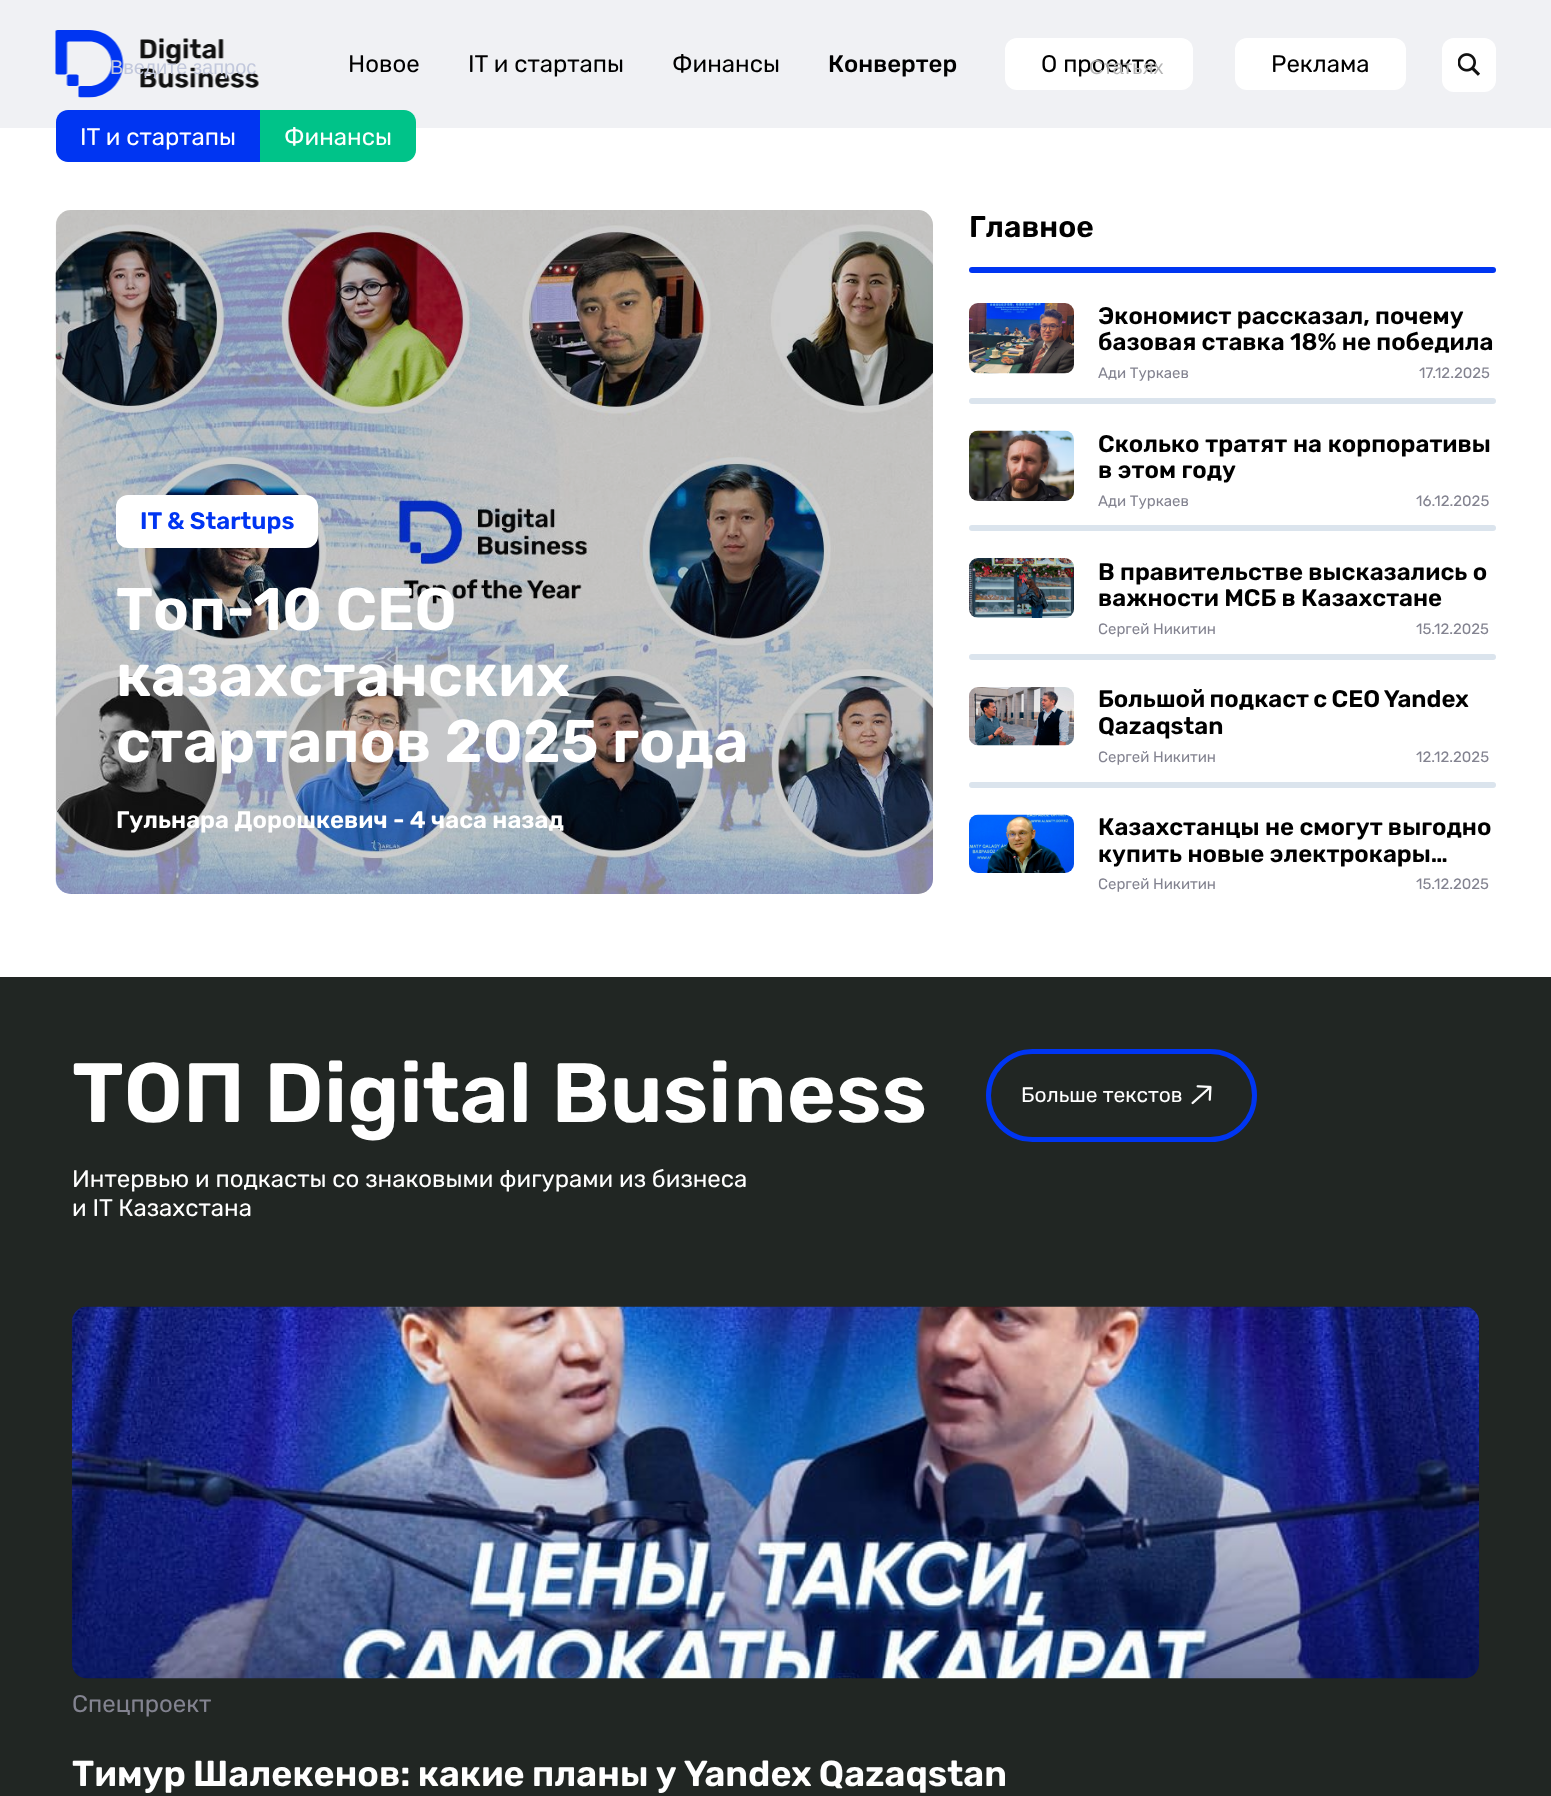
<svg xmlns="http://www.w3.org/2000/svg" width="1551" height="1796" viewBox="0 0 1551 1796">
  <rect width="100%" height="100%" fill="#ffffff"/>
  <rect x="0" y="0" width="1551" height="128" fill="#f0f1f4"/>
  <image x="55" y="30" width="204" height="68" href="img1.png"/>
  <text x="348" y="72" font-family="Rubik" font-size="24" fill="#000000">Новое</text>
  <text x="468" y="72" font-family="Rubik" font-size="24" fill="#000000">IT и стартапы</text>
  <text x="672" y="72" font-family="Rubik" font-size="24" fill="#000000">Финансы</text>
  <text x="828" y="72" font-family="Rubik" font-size="24" font-weight="500" fill="#000000">Конвертер</text>
  <rect x="1005" y="38" width="188" height="52" rx="12" fill="#ffffff"/>
  <text x="1041" y="72" font-family="Rubik" font-size="24" fill="#000000">О проекте</text>
  <rect x="1235" y="38" width="171" height="52" rx="12" fill="#ffffff"/>
  <text x="1271" y="72" font-family="Rubik" font-size="24" fill="#000000">Реклама</text>
  <rect x="1442" y="38" width="54" height="54" rx="12" fill="#ffffff"/>
  <image x="1458" y="53" width="22" height="23" href="img2.png"/>
  <text x="110" y="74" font-family="Liberation Sans" font-size="20" fill="#c2c8dc">Введите запрос</text>
  <text x="1089" y="74" font-family="Liberation Sans" font-size="20" fill="#b4b4b4">Статьях</text>
  <path d="M68 110H260V162H68C61.5 162 56 156.5 56 150V122C56 115.5 61.5 110 68 110Z" fill="#0035f2"/>
  <text x="80" y="145" font-family="Rubik" font-size="24" fill="#ffffff">IT и стартапы</text>
  <path d="M260 110H404C410.5 110 416 115.5 416 122V150C416 156.5 410.5 162 404 162H260Z" fill="#00c389"/>
  <text x="284" y="145" font-family="Rubik" font-size="24" fill="#ffffff">Финансы</text>
  <image x="55" y="210" width="878" height="684" href="img3.png"/>
  <rect x="56" y="210" width="877" height="684" rx="15" fill="#111111" fill-opacity="0.2"/>
  <rect x="116" y="495" width="202" height="53" rx="12" fill="#ffffff"/>
  <text x="140" y="529" font-family="Rubik" font-size="24" font-weight="600" fill="#0035f2">IT &amp; Startups</text>
  <text x="116" y="630" font-family="Rubik" font-size="60" font-weight="600" fill="#ffffff">Топ-10 CEO</text>
  <text x="116" y="696" font-family="Rubik" font-size="60" font-weight="600" fill="#ffffff">казахстанских</text>
  <text x="116" y="762" font-family="Rubik" font-size="60" font-weight="600" fill="#ffffff">стартапов 2025 года</text>
  <text x="116" y="828" font-family="Rubik" font-size="24" font-weight="600" fill="#ffffff">Гульнара Дорошкевич - 4 часа назад</text>
  <text x="969" y="237" font-family="Rubik" font-size="30" font-weight="600" fill="#000000">Главное</text>
  <rect x="969" y="267" width="527" height="6" rx="3" fill="#0035f2"/>
  <image x="969" y="303" width="105" height="71" href="img4.png"/>
  <text x="1098" y="324" font-family="Rubik" font-size="24" font-weight="600" fill="#000000">Экономист рассказал, почему</text>
  <text x="1098" y="350" font-family="Rubik" font-size="24" font-weight="600" fill="#000000">базовая ставка 18% не победила</text>
  <text x="1098" y="378" font-family="Rubik" font-size="15" fill="#838390">Ади Туркаев</text>
  <text x="1419" y="378" font-family="Rubik" font-size="15" fill="#838390">17.12.2025</text>
  <rect x="969" y="398" width="527" height="6" rx="3" fill="#dbe4ed"/>
  <image x="969" y="430" width="105" height="71" href="img5.png"/>
  <text x="1098" y="452" word-spacing="0.5" font-family="Rubik" font-size="24" font-weight="600" fill="#000000">Cколько тратят на корпоративы</text>
  <text x="1098" y="478" font-family="Rubik" font-size="24" font-weight="600" fill="#000000">в этом году</text>
  <text x="1098" y="506" font-family="Rubik" font-size="15" fill="#838390">Ади Туркаев</text>
  <text x="1416" y="506" font-family="Rubik" font-size="15" fill="#838390">16.12.2025</text>
  <rect x="969" y="525" width="527" height="6" rx="3" fill="#dbe4ed"/>
  <image x="969" y="558" width="105" height="60" href="img6.png"/>
  <text x="1098" y="580" font-family="Rubik" font-size="24" font-weight="600" fill="#000000">В правительстве высказались о</text>
  <text x="1098" y="606" font-family="Rubik" font-size="24" font-weight="600" fill="#000000">важности МСБ в Казахстане</text>
  <text x="1098" y="634" font-family="Rubik" font-size="15" fill="#838390">Сергей Никитин</text>
  <text x="1416" y="634" font-family="Rubik" font-size="15" fill="#838390">15.12.2025</text>
  <rect x="969" y="654" width="527" height="6" rx="3" fill="#dbe4ed"/>
  <image x="969" y="687" width="105" height="59" href="img7.png"/>
  <text x="1098" y="707" word-spacing="-1" font-family="Rubik" font-size="24" font-weight="600" fill="#000000">Большой подкаст с СEO Yandex</text>
  <text x="1098" y="734" font-family="Rubik" font-size="24" font-weight="600" fill="#000000">Qazaqstan</text>
  <text x="1098" y="762" font-family="Rubik" font-size="15" fill="#838390">Сергей Никитин</text>
  <text x="1416" y="762" font-family="Rubik" font-size="15" fill="#838390">12.12.2025</text>
  <rect x="969" y="782" width="527" height="6" rx="3" fill="#dbe4ed"/>
  <image x="969" y="814" width="105" height="59" href="img8.png"/>
  <text x="1098" y="835" font-family="Rubik" font-size="24" font-weight="600" fill="#000000">Казахстанцы не смогут выгодно</text>
  <text x="1098" y="862" font-family="Rubik" font-size="24" font-weight="600" fill="#000000">купить новые электрокары…</text>
  <text x="1098" y="889" font-family="Rubik" font-size="15" fill="#838390">Сергей Никитин</text>
  <text x="1416" y="889" font-family="Rubik" font-size="15" fill="#838390">15.12.2025</text>
  <rect x="0" y="977" width="1551" height="819" fill="#212623"/>
  <text x="72" y="1122" word-spacing="1" font-family="Rubik" font-size="84" font-weight="600" fill="#ffffff">ТОП Digital Business</text>
  <text x="72" y="1187" font-family="Rubik" font-size="24" fill="#ffffff">Интервью и подкасты со знаковыми фигурами из бизнеса</text>
  <text x="72" y="1216" font-family="Rubik" font-size="24" fill="#ffffff">и IT Казахстана</text>
  <rect x="988.5" y="1051.5" width="266" height="88" rx="44" fill="none" stroke="#0035f2" stroke-width="5"/>
  <text x="1021" y="1102" font-family="Rubik" font-size="21" fill="#ffffff">Больше текстов</text>
  <image x="1191" y="1085" width="21" height="20" href="img9.png"/>
  <image x="72" y="1306" width="1407" height="373" href="img10.png"/>
  <text x="72" y="1712" font-family="Rubik" font-size="24" fill="#838390">Спецпроект</text>
  <text x="72" y="1786" word-spacing="-0.75" font-family="Rubik" font-size="36" font-weight="600" fill="#ffffff">Тимур Шалекенов: какие планы у Yandex Qazaqstan</text>
</svg>
